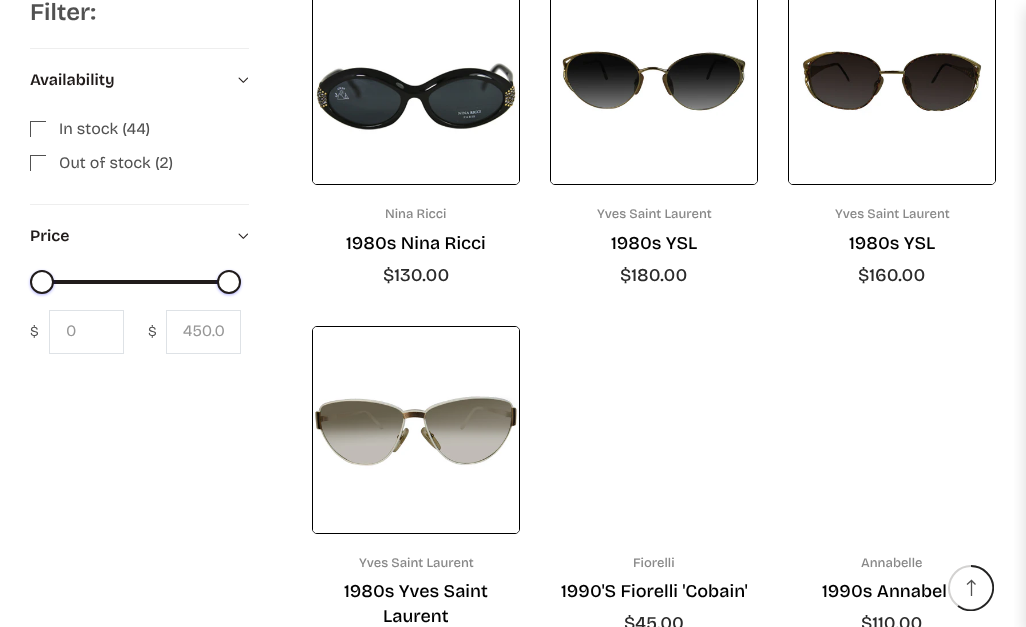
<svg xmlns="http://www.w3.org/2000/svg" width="1026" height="627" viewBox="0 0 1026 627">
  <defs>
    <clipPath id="clip1"><rect x="30" y="121" width="16" height="16"/></clipPath>
    <clipPath id="clip2"><rect x="30" y="155" width="16" height="16"/></clipPath>
    <filter id="blur1" x="-50%" y="-200%" width="200%" height="500%"><feGaussianBlur stdDeviation="1.5"/></filter>
    <clipPath id="clip3"><rect x="948" y="565" width="46" height="46"/></clipPath>
    <filter id="blur2" x="-50%" y="-200%" width="200%" height="500%"><feGaussianBlur stdDeviation="8"/></filter>
  </defs>
  <rect width="100%" height="100%" fill="#ffffff"/>
  <text x="30" y="20" font-family="Bricolage Grotesque" font-size="24" font-weight="600" fill="#515151">Filter:</text>
  <rect x="30" y="48" width="219" height="1" fill="#eeeeee"/>
  <text x="30" y="85" font-family="Bricolage Grotesque" font-size="16" font-weight="600" fill="#211c1b">Availability</text>
  <image x="238" y="77" width="10" height="6" href="img1.png"/>
  <g clip-path="url(#clip1)">
    <rect x="30.5" y="121.5" width="16" height="16" fill="none" stroke="#515151"/>
  </g>
  <text x="59" y="134" font-family="Bricolage Grotesque" font-size="16" fill="#515151">In stock (44)</text>
  <g clip-path="url(#clip2)">
    <rect x="30.5" y="155.5" width="16" height="16" fill="none" stroke="#515151"/>
  </g>
  <text x="59" y="168" font-family="Bricolage Grotesque" font-size="16" fill="#515151">Out of stock (2)</text>
  <rect x="30" y="204" width="219" height="1" fill="#eeeeee"/>
  <text x="30" y="241" font-family="Bricolage Grotesque" font-size="16" font-weight="600" fill="#211c1b">Price</text>
  <image x="238" y="233" width="10" height="6" href="img1.png"/>
  <rect x="53" y="280" width="165" height="4" fill="#211c1b"/>
  <rect x="30" y="271" width="24" height="24" rx="12" fill="#0000ff" fill-opacity="0.3" filter="url(#blur1)"/>
  <circle cx="42" cy="282" r="11" fill="#ffffff" stroke="#211c1b" stroke-width="2"/>
  <rect x="217" y="271" width="24" height="24" rx="12" fill="#0000ff" fill-opacity="0.3" filter="url(#blur1)"/>
  <circle cx="229" cy="282" r="11" fill="#ffffff" stroke="#211c1b" stroke-width="2"/>
  <text x="30" y="336" font-family="Bricolage Grotesque" font-size="14" fill="#515151">$</text>
  <rect x="49.5" y="310.5" width="74" height="43" fill="none" stroke="#dee2e6"/>
  <text x="66" y="336" font-family="Bricolage Grotesque" font-size="16" fill="#979797">0</text>
  <text x="148" y="336" font-family="Bricolage Grotesque" font-size="14" fill="#515151">$</text>
  <rect x="166.5" y="310.5" width="74" height="43" fill="none" stroke="#dee2e6"/>
  <text x="183" y="336" font-family="Bricolage Grotesque" font-size="16" fill="#979797">450.0</text>
  <rect x="312.5" y="-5.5" width="207" height="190" rx="4.5" fill="none" stroke="#000000"/>
  <image x="313" y="63" width="206" height="121" href="img2.png"/>
  <text x="385" y="218" font-family="Bricolage Grotesque" font-size="13" font-weight="500" fill="#888888">Nina Ricci</text>
  <text x="346" y="249" font-family="Bricolage Grotesque" font-size="18" font-weight="500" fill="#000000">1980s Nina Ricci</text>
  <text x="383" y="281" font-family="Bricolage Grotesque" font-size="18" font-weight="500" fill="#2b2b2b">$130.00</text>
  <rect x="550.5" y="-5.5" width="207" height="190" rx="4.5" fill="none" stroke="#000000"/>
  <image x="551" y="51" width="206" height="133" href="img3.png"/>
  <text x="597" y="218" font-family="Bricolage Grotesque" font-size="13" font-weight="500" fill="#888888">Yves Saint Laurent</text>
  <text x="611" y="249" font-family="Bricolage Grotesque" font-size="18" font-weight="500" fill="#000000">1980s YSL</text>
  <text x="620" y="281" font-family="Bricolage Grotesque" font-size="18" font-weight="500" fill="#2b2b2b">$180.00</text>
  <rect x="788.5" y="-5.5" width="207" height="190" rx="4.5" fill="none" stroke="#000000"/>
  <image x="789" y="51" width="206" height="133" href="img4.png"/>
  <text x="835" y="218" font-family="Bricolage Grotesque" font-size="13" font-weight="500" fill="#888888">Yves Saint Laurent</text>
  <text x="849" y="249" font-family="Bricolage Grotesque" font-size="18" font-weight="500" fill="#000000">1980s YSL</text>
  <text x="858" y="281" font-family="Bricolage Grotesque" font-size="18" font-weight="500" fill="#2b2b2b">$160.00</text>
  <rect x="312.5" y="326.5" width="207" height="207" rx="4.5" fill="none" stroke="#000000"/>
  <image x="313" y="327" width="206" height="206" href="img5.png"/>
  <text x="359" y="567" font-family="Bricolage Grotesque" font-size="13" font-weight="500" fill="#888888">Yves Saint Laurent</text>
  <text x="344" y="597" font-family="Bricolage Grotesque" font-size="18" font-weight="500" fill="#000000">1980s Yves Saint</text>
  <text x="383" y="622" font-family="Bricolage Grotesque" font-size="18" font-weight="500" fill="#000000">Laurent</text>
  <text x="633" y="567" font-family="Bricolage Grotesque" font-size="13" font-weight="500" fill="#888888">Fiorelli</text>
  <text x="561" y="597" font-family="Bricolage Grotesque" font-size="18" font-weight="500" fill="#000000">1990'S Fiorelli 'Cobain'</text>
  <text x="624" y="629" font-family="Bricolage Grotesque" font-size="18" font-weight="500" fill="#2b2b2b">$45.00</text>
  <text x="861" y="567" font-family="Bricolage Grotesque" font-size="13" font-weight="500" fill="#888888">Annabelle</text>
  <text x="822" y="597" font-family="Bricolage Grotesque" font-size="18" font-weight="500" fill="#000000">1990s Annabel</text>
  <text x="861" y="629" font-family="Bricolage Grotesque" font-size="18" font-weight="500" fill="#2b2b2b">$110.00</text>
  <circle cx="971" cy="588" r="22" fill="none" stroke="#211c1b" stroke-opacity="0.2" stroke-width="2"/>
  <g clip-path="url(#clip3)">
    <path d="M971 566C977 566 982.5 568.5 986.5 572.5C1006 592 979 621.5 958 606" fill="none" stroke="#222222" stroke-width="1.8"/>
  </g>
  <path d="M975.5 584.5L971.5 580.5L967 584.5M971.5 580.5V596" fill="none" stroke="#515151" stroke-width="1.3"/>
  <rect x="1026" y="8" width="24" height="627" fill="#000000" fill-opacity="0.15" filter="url(#blur2)"/>
</svg>
